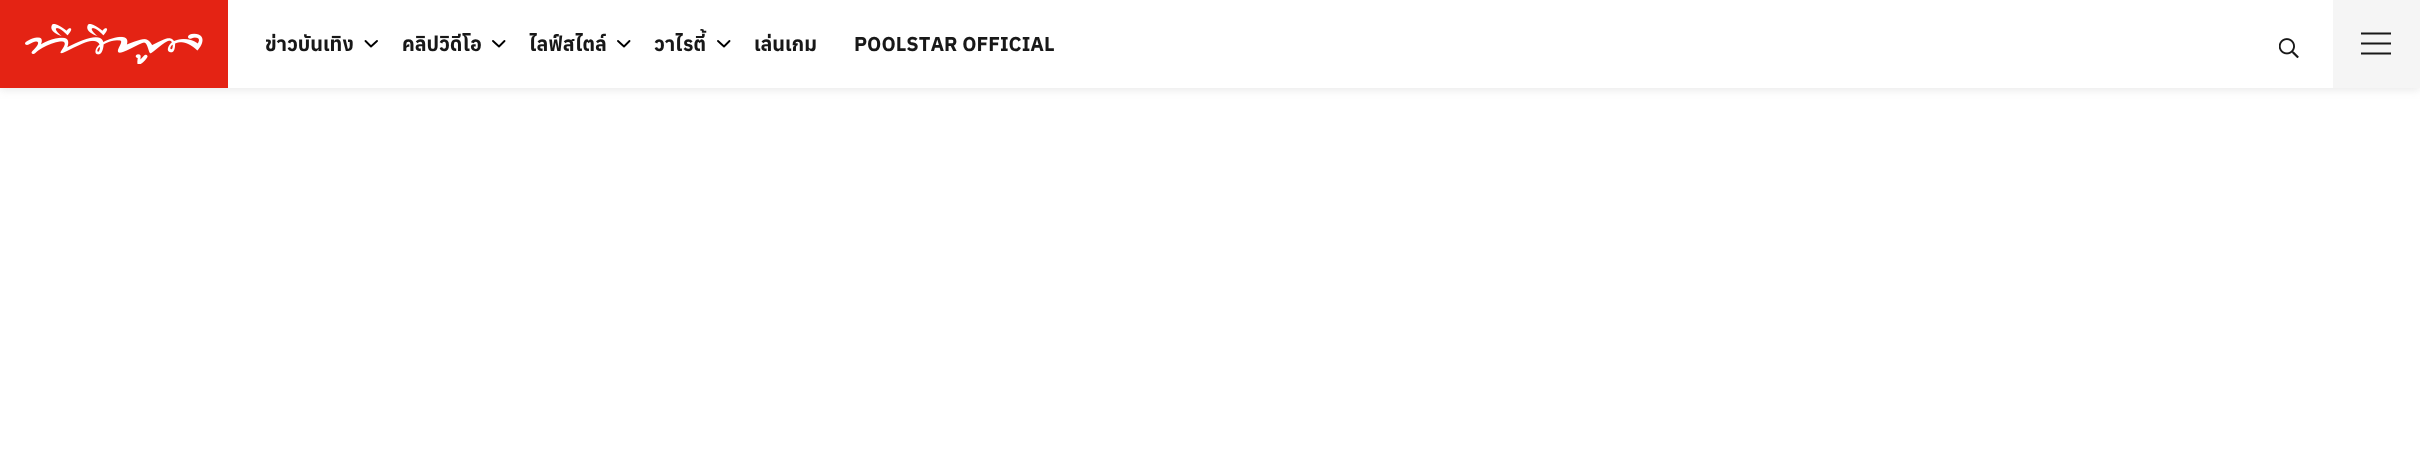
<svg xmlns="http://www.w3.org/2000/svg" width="2420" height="452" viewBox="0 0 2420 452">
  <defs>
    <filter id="blur1" x="-50%" y="-200%" width="200%" height="500%"><feGaussianBlur stdDeviation="4.5"/></filter>
  </defs>
  <rect width="100%" height="100%" fill="#ffffff"/>
  <rect x="0" y="3" width="2420" height="87" fill="#a9a9a9" fill-opacity="0.25" filter="url(#blur1)"/>
  <rect x="228" y="0" width="2105" height="88" fill="#ffffff"/>
  <rect x="0" y="0" width="228" height="88" fill="#e42314"/>
  <image x="25" y="24" width="178" height="40" href="img1.png"/>
  <text x="265" y="51" font-family="Anuphan" font-size="20" font-weight="bold" fill="#181818">ข่าวบันเทิง</text>
  <path d="M365.5 41L371 46.5L377 41" fill="none" stroke="#000000" stroke-width="1.9" stroke-linecap="round" stroke-linejoin="round"/>
  <text x="402" y="51" font-family="Anuphan" font-size="20" font-weight="bold" fill="#181818">คลิปวิดีโอ</text>
  <path d="M493 41L499 46.5L504.5 41" fill="none" stroke="#000000" stroke-width="1.9" stroke-linecap="round" stroke-linejoin="round"/>
  <text x="529" y="51" font-family="Anuphan" font-size="20" font-weight="bold" fill="#181818">ไลฟ์สไตล์</text>
  <path d="M618 41L624 46.5L629.5 41" fill="none" stroke="#000000" stroke-width="1.9" stroke-linecap="round" stroke-linejoin="round"/>
  <text x="654" y="51" font-family="Anuphan" font-size="20" font-weight="bold" fill="#181818">วาไรตี้</text>
  <path d="M718 41L724 46.5L729.5 41" fill="none" stroke="#000000" stroke-width="1.9" stroke-linecap="round" stroke-linejoin="round"/>
  <text x="754" y="51" font-family="Anuphan" font-size="20" font-weight="bold" fill="#181818">เล่นเกม</text>
  <text x="854" y="51" font-family="Anuphan" font-size="20" font-weight="bold" fill="#181818">POOLSTAR OFFICIAL</text>
  <image x="2279" y="38" width="20" height="21" href="img2.png"/>
  <rect x="2333" y="0" width="87" height="88" fill="#f5f5f5"/>
  <path d="M2361 33.5H2391M2361 43.5H2391M2361 53.5H2391" fill="none" stroke="#181818" stroke-width="1.8"/>
</svg>
